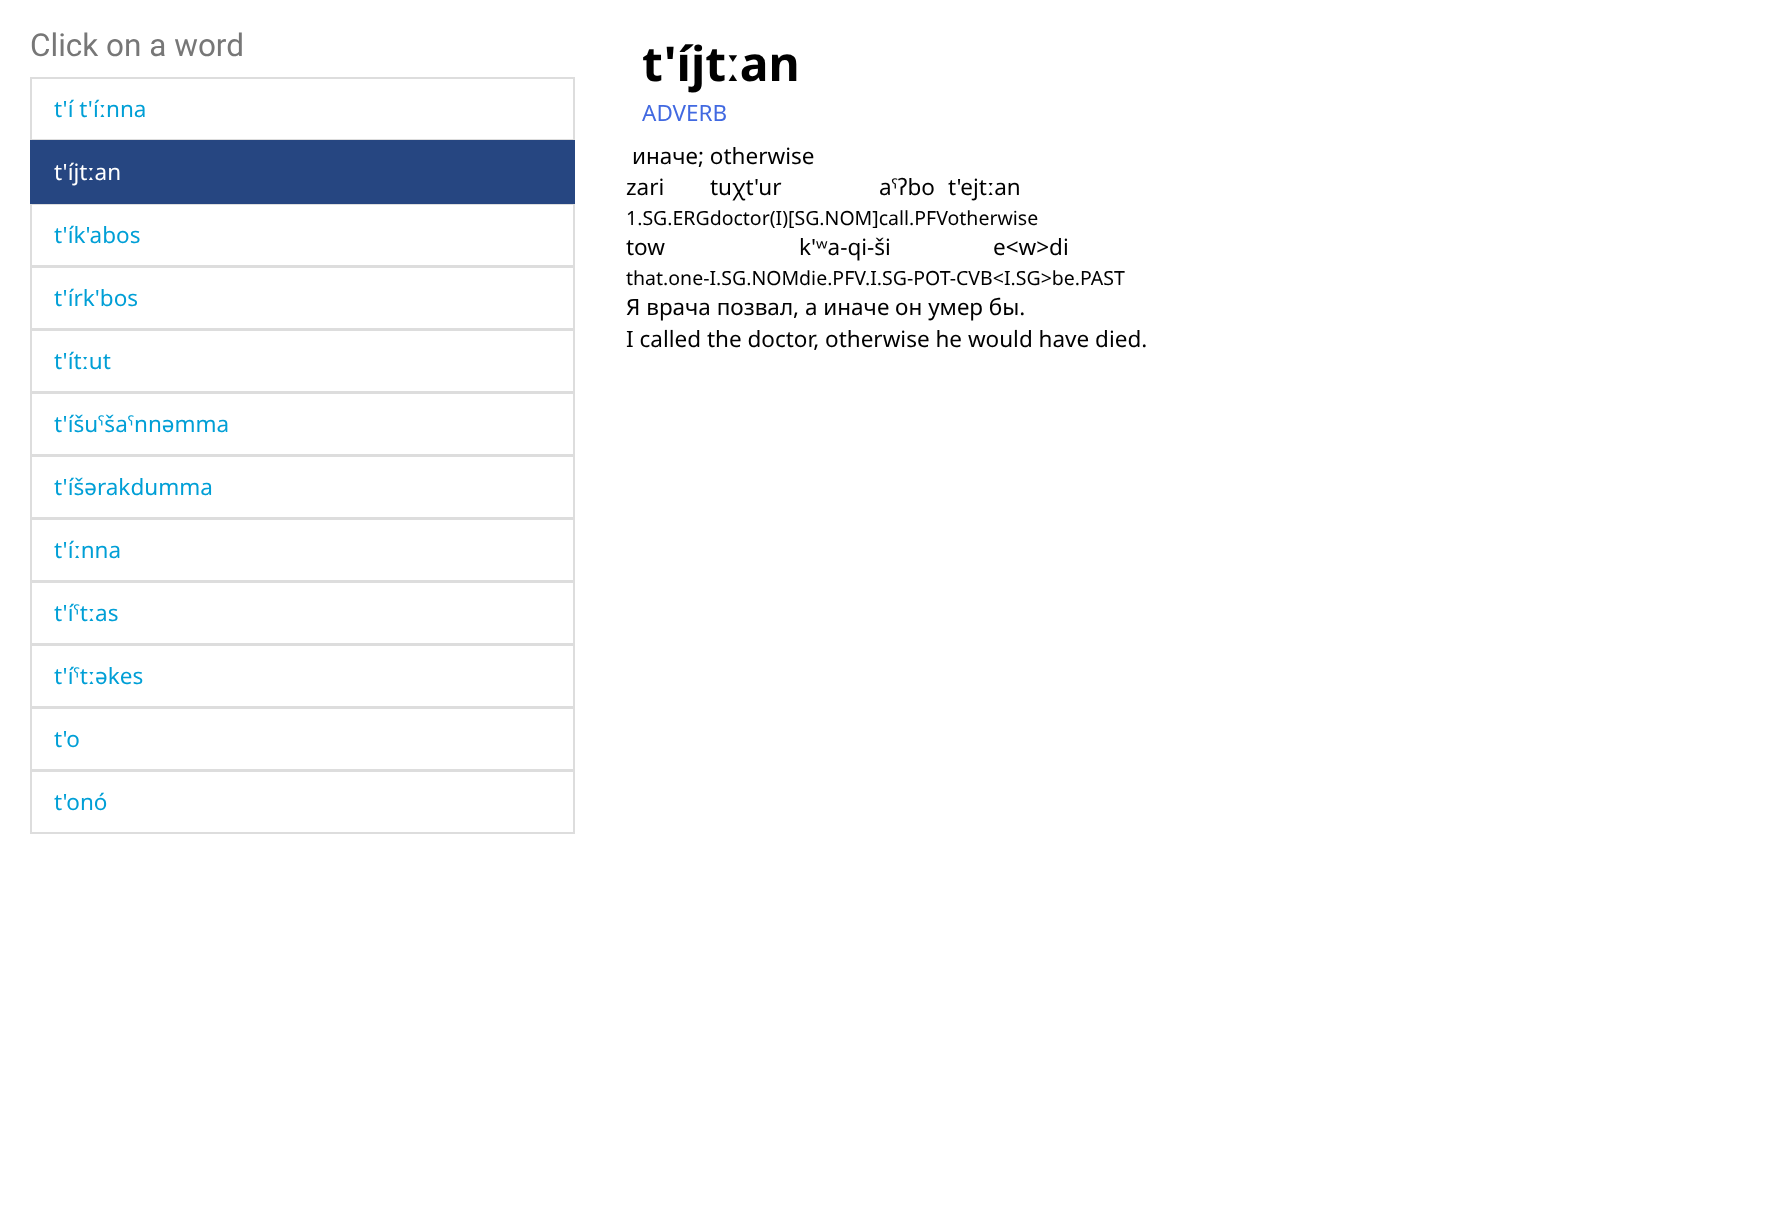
<svg xmlns="http://www.w3.org/2000/svg" width="1784" height="1209" viewBox="0 0 1784 1209">
  <rect width="100%" height="100%" fill="#ffffff"/>
  <text x="30" y="56" font-family="Roboto" font-size="31.5" fill="#777777">Click on a word</text>
  <rect x="31" y="78" width="543" height="62" fill="none" stroke="#dddddd" stroke-width="2"/>
  <text x="54" y="117" font-family="Noto Sans" font-size="22.5" fill="#009fd6">t'í t'íːnna</text>
  <rect x="31" y="204" width="543" height="62" fill="none" stroke="#dddddd" stroke-width="2"/>
  <rect x="30" y="140" width="545" height="64" fill="#264681"/>
  <text x="54" y="180" font-family="Noto Sans" font-size="22.5" fill="#ffffff">t'íjtːan</text>
  <text x="54" y="243" font-family="Noto Sans" font-size="22.5" fill="#009fd6">t'ík'abos</text>
  <rect x="31" y="267" width="543" height="62" fill="none" stroke="#dddddd" stroke-width="2"/>
  <text x="54" y="306" font-family="Noto Sans" font-size="22.5" fill="#009fd6">t'írk'bos</text>
  <rect x="31" y="330" width="543" height="62" fill="none" stroke="#dddddd" stroke-width="2"/>
  <text x="54" y="369" font-family="Noto Sans" font-size="22.5" fill="#009fd6">t'ítːut</text>
  <rect x="31" y="393" width="543" height="62" fill="none" stroke="#dddddd" stroke-width="2"/>
  <text x="54" y="432" font-family="Noto Sans" font-size="22.5" fill="#009fd6">t'íšuˤšaˤnnəmma</text>
  <rect x="31" y="456" width="543" height="62" fill="none" stroke="#dddddd" stroke-width="2"/>
  <text x="54" y="495" font-family="Noto Sans" font-size="22.5" fill="#009fd6">t'íšərakdumma</text>
  <rect x="31" y="519" width="543" height="62" fill="none" stroke="#dddddd" stroke-width="2"/>
  <text x="54" y="558" font-family="Noto Sans" font-size="22.5" fill="#009fd6">t'íːnna</text>
  <rect x="31" y="582" width="543" height="62" fill="none" stroke="#dddddd" stroke-width="2"/>
  <text x="54" y="621" font-family="Noto Sans" font-size="22.5" fill="#009fd6">t'íˤtːas</text>
  <rect x="31" y="645" width="543" height="62" fill="none" stroke="#dddddd" stroke-width="2"/>
  <text x="54" y="684" font-family="Noto Sans" font-size="22.5" fill="#009fd6">t'íˤtːəkes</text>
  <rect x="31" y="708" width="543" height="62" fill="none" stroke="#dddddd" stroke-width="2"/>
  <text x="54" y="747" font-family="Noto Sans" font-size="22.5" fill="#009fd6">t'o</text>
  <rect x="31" y="771" width="543" height="62" fill="none" stroke="#dddddd" stroke-width="2"/>
  <text x="54" y="810" font-family="Noto Sans" font-size="22.5" fill="#009fd6">t'onó</text>
  <text x="642" y="81" font-family="Noto Sans" font-size="48" font-weight="bold" fill="#000000">t'íjtːan</text>
  <text x="642" y="121" font-family="Noto Sans" font-size="22.5" fill="#4169e1">ADVERB</text>
  <text x="632" y="164" font-family="Noto Sans" font-size="22.5" fill="#000000">иначе; otherwise</text>
  <text x="879" y="195" font-family="Noto Sans" font-size="22.5" fill="#000000">aˤʔbo</text>
  <text x="626" y="195" font-family="Noto Sans" font-size="22.5" fill="#000000">zari</text>
  <text x="626" y="225" font-family="Noto Sans" font-size="19.5" fill="#000000">1.SG.ERGdoctor(I)[SG.NOM]call.PFVotherwise</text>
  <text x="710" y="195" font-family="Noto Sans" font-size="22.5" fill="#000000">tuχt'ur</text>
  <text x="948" y="195" font-family="Noto Sans" font-size="22.5" fill="#000000">t'ejtːan</text>
  <text x="799" y="255" font-family="Noto Sans" font-size="22.5" fill="#000000">k'ʷa-qi-ši</text>
  <text x="993" y="255" font-family="Noto Sans" font-size="22.5" fill="#000000">e&lt;w&gt;di</text>
  <text x="626" y="255" font-family="Noto Sans" font-size="22.5" fill="#000000">tow</text>
  <text x="626" y="285" font-family="Noto Sans" font-size="19.5" fill="#000000">that.one-I.SG.NOMdie.PFV.I.SG-POT-CVB&lt;I.SG&gt;be.PAST</text>
  <text x="626" y="315" font-family="Noto Sans" font-size="22.5" fill="#000000">Я врача позвал, а иначе он умер бы.</text>
  <text x="626" y="347" font-family="Noto Sans" font-size="22.5" fill="#000000">I called the doctor, otherwise he would have died.</text>
</svg>
